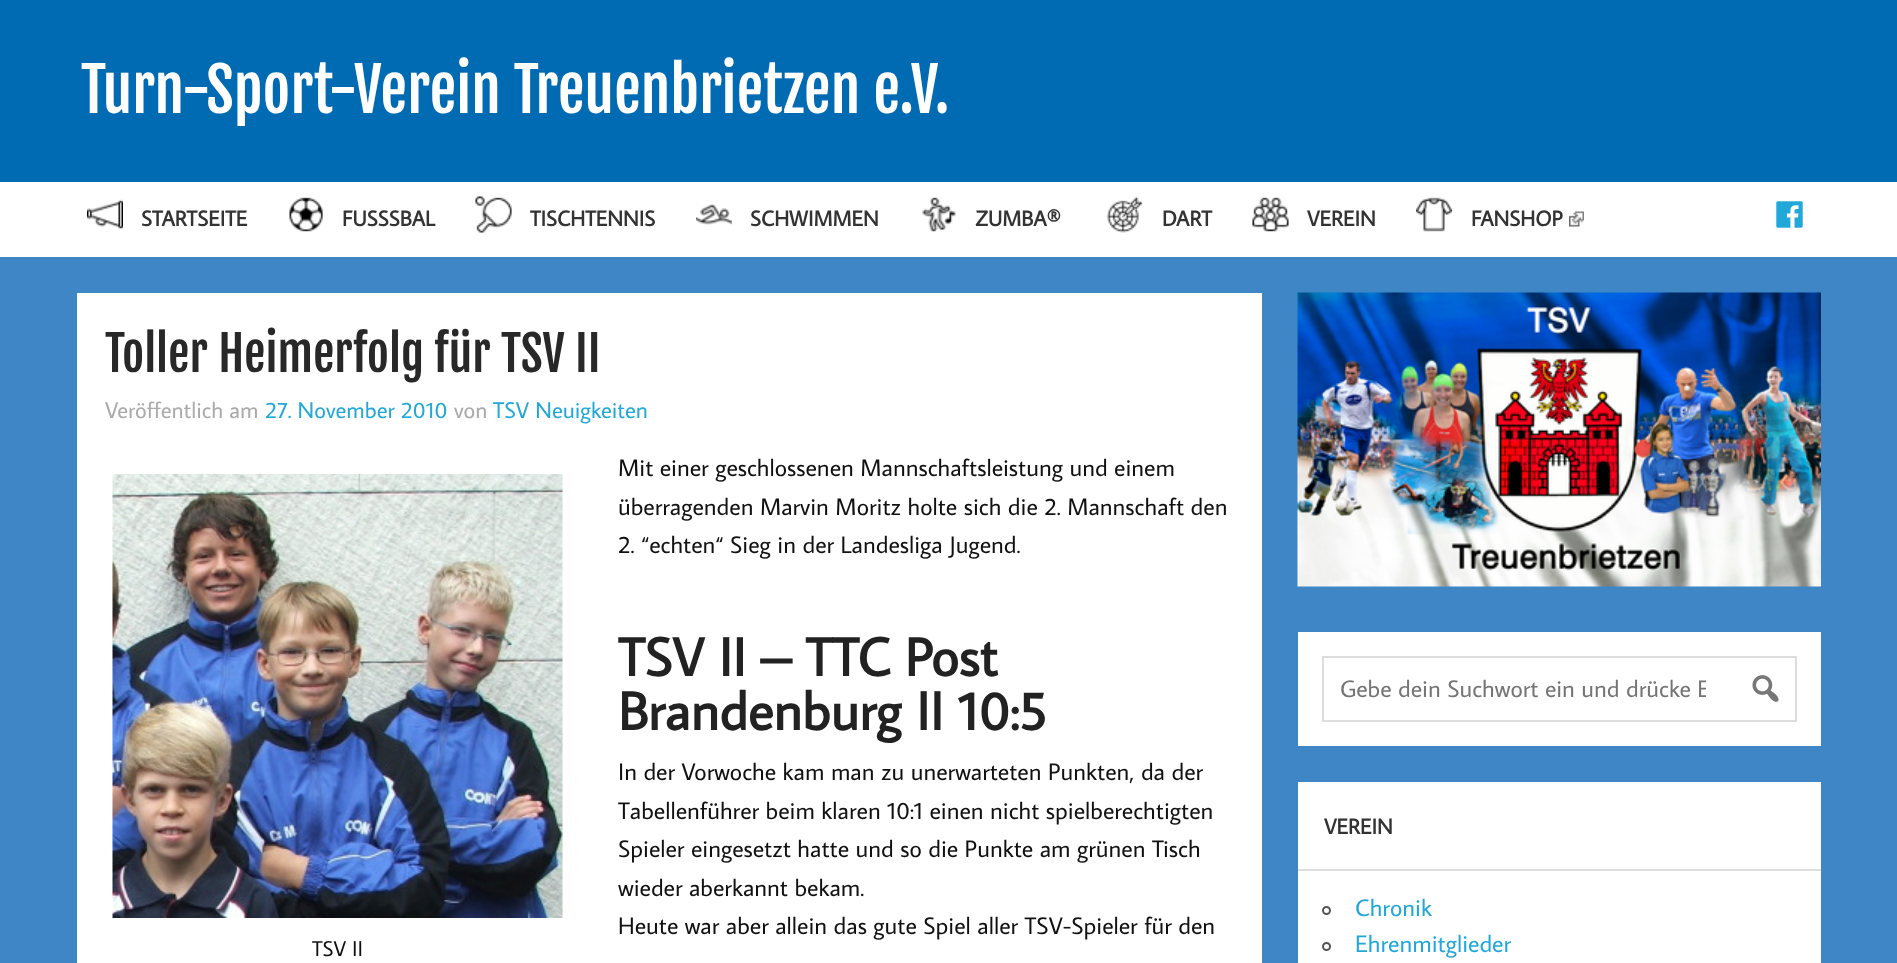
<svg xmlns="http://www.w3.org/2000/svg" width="1897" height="963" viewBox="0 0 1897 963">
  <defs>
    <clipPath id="clip1"><rect x="1340" y="674" width="366" height="30"/></clipPath>
  </defs>
  <rect width="100%" height="100%" fill="#3e86c6"/>
  <rect x="0" y="0" width="1897" height="182" fill="#006ab2"/>
  <text x="81" y="113" font-family="Fjalla One" font-size="60" fill="#ffffff">Turn-Sport-Verein Treuenbrietzen e.V.</text>
  <rect x="0" y="182" width="1897" height="75" fill="#ffffff"/>
  <image x="87" y="199" width="36" height="31" href="img1.png"/>
  <text x="141" y="226" font-family="Average Sans" font-size="21.5" font-weight="bold" fill="#333333">STARTSEITE</text>
  <image x="289" y="197" width="34" height="35" href="img2.png"/>
  <text x="342" y="226" font-family="Average Sans" font-size="21.5" font-weight="bold" fill="#333333">FUSSSBAL</text>
  <image x="475" y="196" width="37" height="37" href="img3.png"/>
  <text x="530" y="226" font-family="Average Sans" font-size="21.5" font-weight="bold" fill="#333333">TISCHTENNIS</text>
  <image x="696" y="204" width="36" height="21" href="img4.png"/>
  <text x="750" y="226" font-family="Average Sans" font-size="21.5" font-weight="bold" fill="#333333">SCHWIMMEN</text>
  <image x="922" y="197" width="34" height="35" href="img5.png"/>
  <text x="975" y="226" font-family="Average Sans" font-size="21.5" font-weight="bold" fill="#333333">ZUMBA®</text>
  <image x="1107" y="196" width="36" height="37" href="img6.png"/>
  <text x="1162" y="226" font-family="Average Sans" font-size="21.5" font-weight="bold" fill="#333333">DART</text>
  <image x="1252" y="197" width="37" height="35" href="img7.png"/>
  <text x="1307" y="226" font-family="Average Sans" font-size="21.5" font-weight="bold" fill="#333333">VEREIN</text>
  <image x="1416" y="197" width="36" height="35" href="img8.png"/>
  <text x="1471" y="226" font-family="Average Sans" font-size="21.5" font-weight="bold" fill="#333333">FANSHOP</text>
  <image x="1569" y="211" width="15" height="16" href="img9.png"/>
  <image x="1776" y="201" width="27" height="27" href="img10.png"/>
  <rect x="77" y="293" width="1185" height="670" fill="#ffffff"/>
  <text x="105" y="372" font-family="Fjalla One" font-size="48" fill="#282828">Toller Heimerfolg für TSV II</text>
  <text x="105" y="418" font-family="Average Sans" font-size="22.75" fill="#aaaaaa">Veröffentlich am</text>
  <text x="265" y="418" font-family="Average Sans" font-size="22.75" fill="#22a8d8">27. November 2010</text>
  <text x="454" y="418" font-family="Average Sans" font-size="22.75" fill="#aaaaaa">von</text>
  <text x="493" y="418" font-family="Average Sans" font-size="22.75" fill="#22a8d8">TSV Neuigkeiten</text>
  <text x="618" y="476" font-family="Average Sans" font-size="24" fill="#111111">Mit einer geschlossenen Mannschaftsleistung und einem</text>
  <text x="618" y="515" font-family="Average Sans" font-size="24" fill="#111111">überragenden Marvin Moritz holte sich die 2. Mannschaft den</text>
  <text x="618" y="553" font-family="Average Sans" font-size="24" fill="#111111">2. “echten“ Sieg in der Landesliga Jugend.</text>
  <text x="618" y="676" font-family="Average Sans" font-size="54" font-weight="bold" fill="#222222">TSV II – TTC Post</text>
  <text x="618" y="730" font-family="Average Sans" font-size="54" font-weight="bold" fill="#222222">Brandenburg II 10:5</text>
  <text x="618" y="780" font-family="Average Sans" font-size="24" fill="#111111">In der Vorwoche kam man zu unerwarteten Punkten, da der</text>
  <text x="618" y="819" font-family="Average Sans" font-size="24" fill="#111111">Tabellenführer beim klaren 10:1 einen nicht spielberechtigten</text>
  <text x="618" y="857" font-family="Average Sans" font-size="24" fill="#111111">Spieler eingesetzt hatte und so die Punkte am grünen Tisch</text>
  <text x="618" y="896" font-family="Average Sans" font-size="24" fill="#111111">wieder aberkannt bekam.</text>
  <text x="618" y="934" font-family="Average Sans" font-size="24" fill="#111111">Heute war aber allein das gute Spiel aller TSV-Spieler für den</text>
  <image x="112" y="474" width="451" height="444" href="img11.png"/>
  <text x="312" y="956" font-family="Average Sans" font-size="21.5" fill="#111111">TSV II</text>
  <image x="1297" y="292" width="524" height="295" href="img12.png"/>
  <rect x="1298" y="632" width="523" height="114" fill="#ffffff"/>
  <rect x="1323" y="657" width="473" height="64" fill="none" stroke="#dddddd" stroke-width="2"/>
  <g clip-path="url(#clip1)">
    <text x="1340" y="697" font-family="Average Sans" font-size="24" fill="#757575">Gebe dein Suchwort ein und drücke E</text>
  </g>
  <image x="1752" y="675" width="27" height="27" href="img13.png"/>
  <rect x="1298" y="782" width="523" height="181" fill="#ffffff"/>
  <rect x="1298" y="869" width="523" height="2" fill="#dddddd"/>
  <text x="1324" y="834" font-family="Average Sans" font-size="21.5" font-weight="bold" fill="#333333">VEREIN</text>
  <circle cx="1326.5" cy="910.5" r="3.5" fill="none" stroke="#555555" stroke-width="2"/>
  <text x="1355" y="916" font-family="Average Sans" font-size="24" fill="#22a8d8">Chronik</text>
  <circle cx="1326.5" cy="946.5" r="3.5" fill="none" stroke="#555555" stroke-width="2"/>
  <text x="1355" y="952" font-family="Average Sans" font-size="24" fill="#22a8d8">Ehrenmitglieder</text>
</svg>
